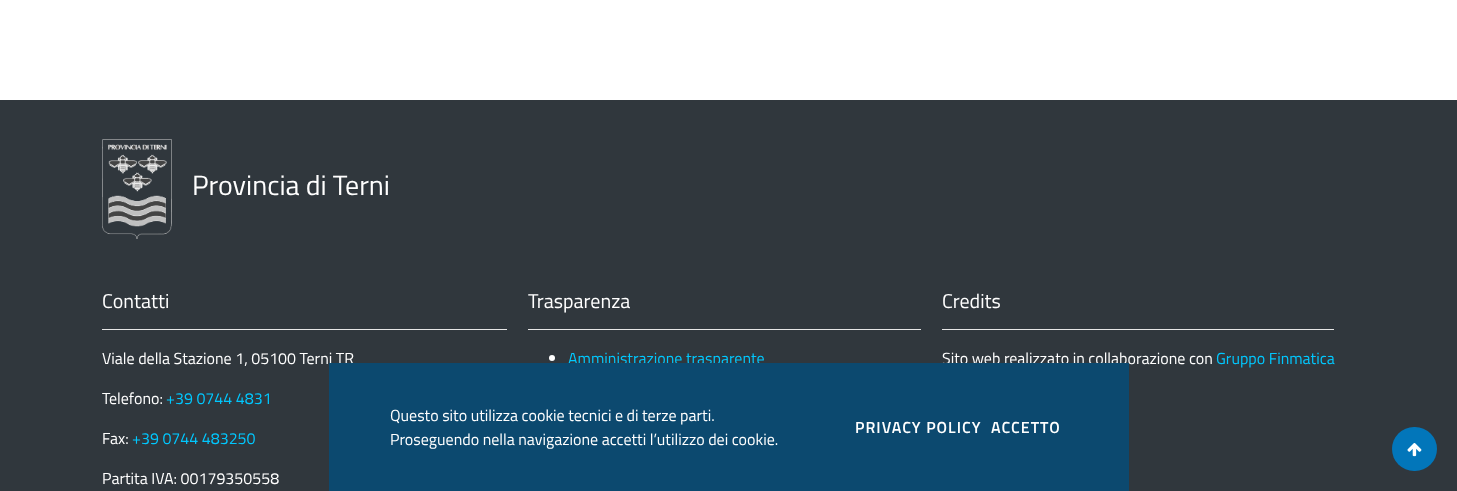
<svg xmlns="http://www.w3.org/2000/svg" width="1457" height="491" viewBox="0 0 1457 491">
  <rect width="100%" height="100%" fill="#ffffff"/>
  <rect x="0" y="100" width="1457" height="391" fill="#30373d"/>
  <image x="102" y="139" width="70" height="100" href="img1.png"/>
  <text x="192" y="195" font-family="Titillium Web" font-size="28" fill="#ffffff">Provincia di Terni</text>
  <text x="102" y="308" font-family="Titillium Web" font-size="20" fill="#ffffff">Contatti</text>
  <rect x="102" y="329" width="405" height="1" fill="#e6e6e6"/>
  <text x="102" y="364" font-family="Titillium Web" font-size="16" fill="#ffffff">Viale della Stazione 1, 05100 Terni TR</text>
  <text x="102" y="404" font-family="Titillium Web" font-size="16" fill="#ffffff">Telefono:</text>
  <text x="166" y="404" font-family="Titillium Web" font-size="16" fill="#00c8ff">+39 0744 4831</text>
  <text x="102" y="444" font-family="Titillium Web" font-size="16" fill="#ffffff">Fax:</text>
  <text x="132" y="444" font-family="Titillium Web" font-size="16" fill="#00c8ff">+39 0744 483250</text>
  <text x="102" y="484" font-family="Titillium Web" font-size="16" fill="#ffffff">Partita IVA: 00179350558</text>
  <text x="528" y="308" font-family="Titillium Web" font-size="20" fill="#ffffff">Trasparenza</text>
  <rect x="528" y="329" width="393" height="1" fill="#e6e6e6"/>
  <circle cx="552" cy="358" r="3" fill="#ffffff"/>
  <text x="568" y="364" font-family="Titillium Web" font-size="16" fill="#00c8ff">Amministrazione trasparente</text>
  <text x="942" y="308" font-family="Titillium Web" font-size="20" fill="#ffffff">Credits</text>
  <rect x="942" y="329" width="392" height="1" fill="#e6e6e6"/>
  <text x="942" y="364" font-family="Titillium Web" font-size="16" fill="#ffffff">Sito web realizzato in collaborazione con</text>
  <text x="1216" y="364" font-family="Titillium Web" font-size="16" fill="#00c8ff">Gruppo Finmatica</text>
  <rect x="329" y="363" width="800" height="128" fill="#0c496f"/>
  <text x="390" y="421" font-family="Titillium Web" font-size="16" fill="#ffffff">Questo sito utilizza cookie tecnici e di terze parti.</text>
  <text x="390" y="445" font-family="Titillium Web" font-size="16" fill="#ffffff">Proseguendo nella navigazione accetti l’utilizzo dei cookie.</text>
  <text x="855" y="433" font-family="Titillium Web" font-size="16" font-weight="600" letter-spacing="1" fill="#ffffff">PRIVACY POLICY</text>
  <text x="991" y="433" font-family="Titillium Web" font-size="16" font-weight="600" letter-spacing="1" fill="#ffffff">ACCETTO</text>
  <rect x="1392" y="427" width="45" height="44" rx="22" fill="#0276ba"/>
  <image x="1407" y="443" width="15" height="14" href="img2.png"/>
</svg>
